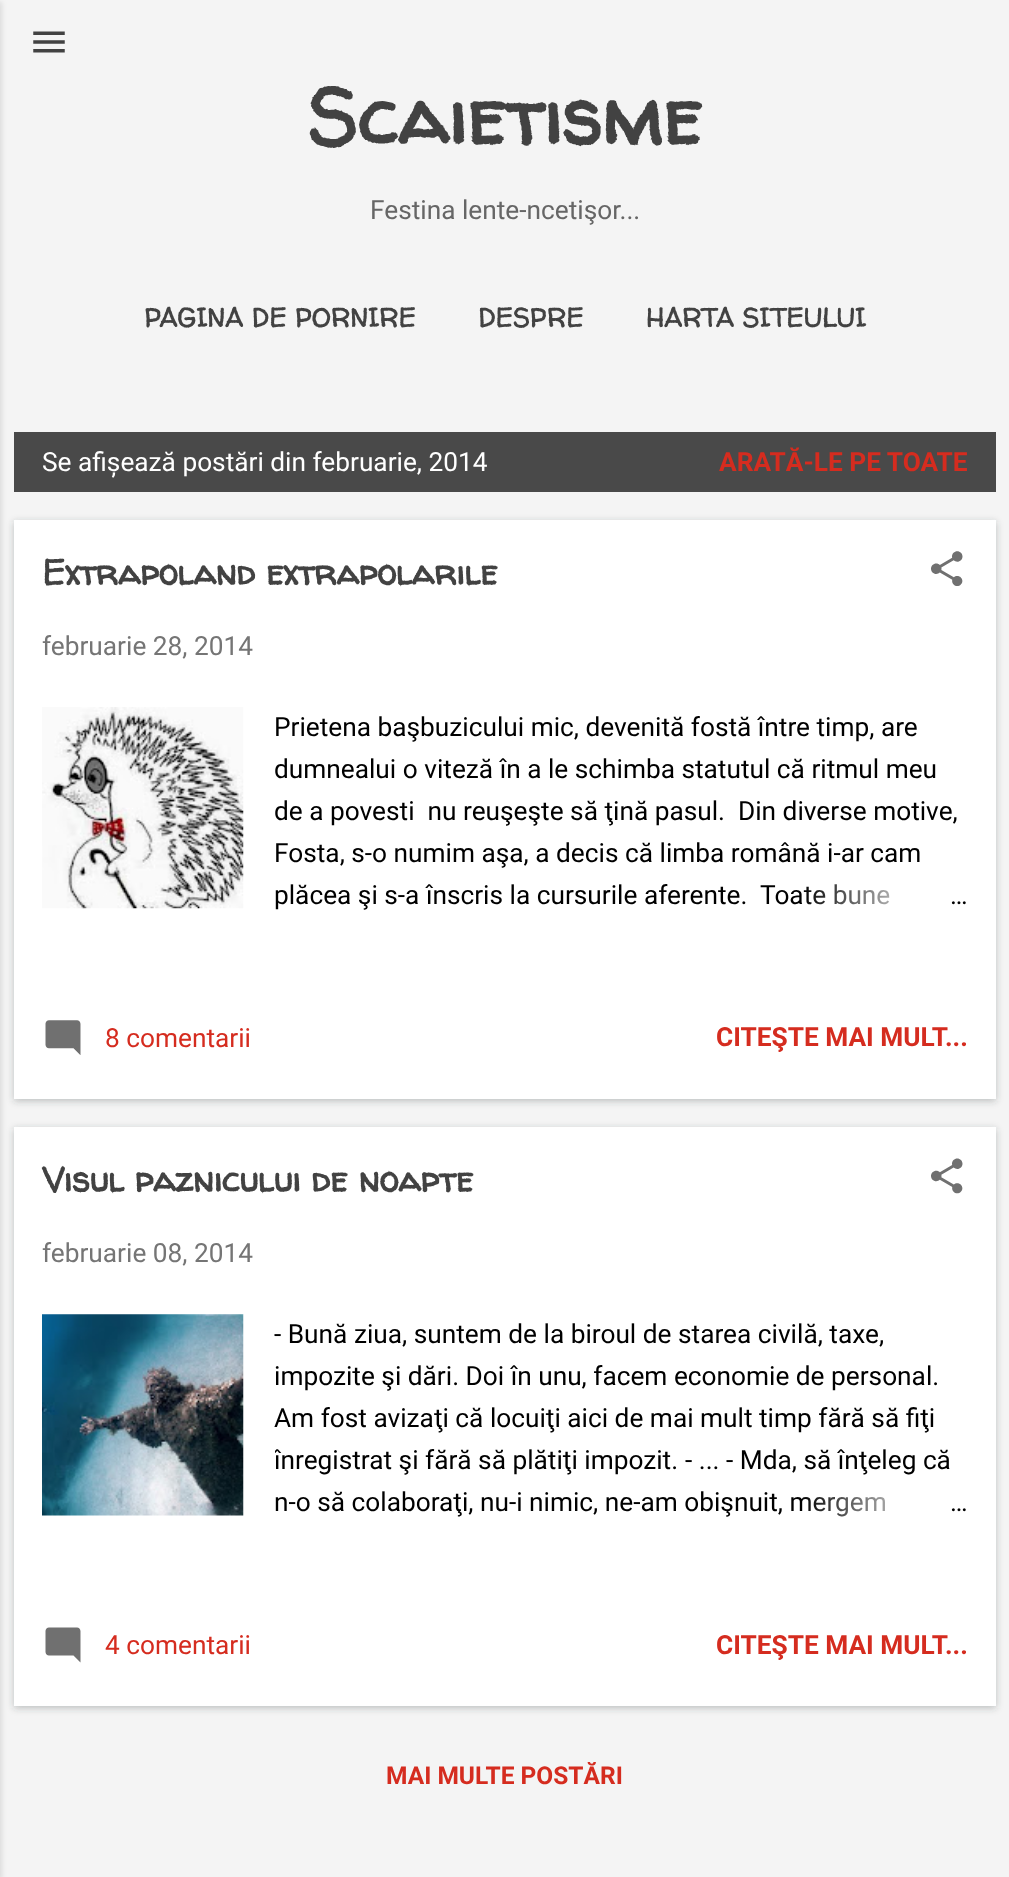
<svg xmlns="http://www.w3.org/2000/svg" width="1009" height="1877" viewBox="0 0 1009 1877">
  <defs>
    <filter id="blur1" x="-50%" y="-200%" width="200%" height="500%"><feGaussianBlur stdDeviation="2.5"/></filter>
    <filter id="blur2" x="-50%" y="-200%" width="200%" height="500%"><feGaussianBlur stdDeviation="3.5"/></filter>
    <linearGradient id="g1" gradientUnits="userSpaceOnUse" x1="968" y1="896" x2="800" y2="896"><stop offset="0" stop-color="#ffffff"/><stop offset="0.2" stop-color="#ffffff"/><stop offset="1" stop-color="#ffffff" stop-opacity="0"/></linearGradient>
    <clipPath id="clip1"><rect x="275" y="1314" width="693" height="210"/></clipPath>
    <linearGradient id="g2" gradientUnits="userSpaceOnUse" x1="968" y1="1503" x2="800" y2="1503"><stop offset="0" stop-color="#ffffff"/><stop offset="0.2" stop-color="#ffffff"/><stop offset="1" stop-color="#ffffff" stop-opacity="0"/></linearGradient>
  </defs>
  <rect width="100%" height="100%" fill="#f4f4f4"/>
  <rect x="-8" y="2" width="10" height="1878" fill="#000000" fill-opacity="0.1" filter="url(#blur1)"/>
  <image x="33" y="31" width="32" height="22" href="img1.png"/>
  <text x="307" y="145" font-family="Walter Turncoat" font-size="78.75" font-weight="bold" fill="#424242">Scaietisme</text>
  <text x="370" y="219" font-family="Roboto" font-size="26.25" fill="#666666">Festina lente-ncetişor...</text>
  <text x="144" y="327" font-family="Walter Turncoat" font-size="26.25" font-weight="bold" fill="#424242">PAGINA DE PORNIRE</text>
  <text x="478" y="327" font-family="Walter Turncoat" font-size="26.25" font-weight="bold" fill="#424242">DESPRE</text>
  <text x="646" y="327" font-family="Walter Turncoat" font-size="26.25" font-weight="bold" fill="#424242">HARTA SITEULUI</text>
  <rect x="14" y="432" width="982" height="60" fill="#494949"/>
  <text x="42" y="471" font-family="Roboto" font-size="26.25" fill="#ffffff">Se afișează postări din februarie, 2014</text>
  <text x="719" y="471" font-family="Roboto" font-size="26.25" font-weight="bold" fill="#d52c1f">ARATĂ-LE PE TOATE</text>
  <rect x="14" y="522" width="982" height="579" fill="#3c4043" fill-opacity="0.3" filter="url(#blur2)"/>
  <rect x="14" y="520" width="982" height="579" fill="#ffffff"/>
  <text x="42" y="585" font-family="Walter Turncoat" font-size="35" font-weight="bold" fill="#424242">Extrapoland extrapolarile</text>
  <image x="931" y="551" width="32" height="35" href="img2.png"/>
  <text x="42" y="655" font-family="Roboto" font-size="26.25" fill="#757575">februarie 28, 2014</text>
  <image x="42" y="707" width="202" height="202" href="img3.png"/>
  <text x="274" y="736" font-family="Roboto" font-size="26.25" fill="#000000">Prietena başbuzicului mic, devenită fostă între timp, are</text>
  <text x="274" y="778" font-family="Roboto" font-size="26.25" fill="#000000">dumnealui o viteză în a le schimba statutul că ritmul meu</text>
  <text x="274" y="820" font-family="Roboto" font-size="26.25" fill="#000000" xml:space="preserve">de a povesti  nu reuşeşte să ţină pasul.</text>
  <text x="738" y="820" font-family="Roboto" font-size="26.25" fill="#000000">Din diverse motive,</text>
  <text x="274" y="862" font-family="Roboto" font-size="26.25" fill="#000000">Fosta, s-o numim aşa, a decis că limba română i-ar cam</text>
  <text x="274" y="904" font-family="Roboto" font-size="26.25" fill="#000000">plăcea şi s-a înscris la cursurile aferente.</text>
  <text x="760" y="904" font-family="Roboto" font-size="26.25" fill="#000000">Toate bune</text>
  <rect x="804" y="884" width="86" height="21" fill="url(#g1)"/>
  <text x="950" y="904" font-family="Roboto" font-size="26.25" fill="#000000">…</text>
  <image x="45" y="1020" width="36" height="35" href="img4.png"/>
  <text x="105" y="1047" font-family="Roboto" font-size="26.25" fill="#d52c1f">8 comentarii</text>
  <text x="716" y="1046" font-family="Roboto" font-size="26.25" font-weight="bold" fill="#d52c1f">CITEŞTE MAI MULT...</text>
  <rect x="14" y="1129" width="982" height="579" fill="#3c4043" fill-opacity="0.3" filter="url(#blur2)"/>
  <rect x="14" y="1127" width="982" height="579" fill="#ffffff"/>
  <text x="42" y="1192" font-family="Walter Turncoat" font-size="35" font-weight="bold" fill="#424242">Visul paznicului de noapte</text>
  <image x="931" y="1158" width="32" height="36" href="img5.png"/>
  <text x="42" y="1262" font-family="Roboto" font-size="26.25" fill="#757575">februarie 08, 2014</text>
  <image x="42" y="1314" width="202" height="202" href="img6.png"/>
  <text x="274" y="1343" font-family="Roboto" font-size="26.25" fill="#000000">- Bună ziua, suntem de la biroul de starea civilă, taxe,</text>
  <text x="274" y="1385" font-family="Roboto" font-size="26.25" fill="#000000">impozite şi dări. Doi în unu, facem economie de personal.</text>
  <text x="274" y="1427" font-family="Roboto" font-size="26.25" fill="#000000">Am fost avizaţi că locuiţi aici de mai mult timp fără să fiţi</text>
  <g clip-path="url(#clip1)">
    <text x="274" y="1469" font-family="Roboto" font-size="26.25" fill="#000000">înregistrat şi fără să plătiţi impozit.</text>
  </g>
  <text x="685" y="1469" font-family="Roboto" font-size="26.25" fill="#000000">- ... - Mda, să înţeleg că</text>
  <text x="274" y="1511" font-family="Roboto" font-size="26.25" fill="#000000">n-o să colaboraţi, nu-i nimic, ne-am obişnuit, mergem</text>
  <rect x="803" y="1496" width="83" height="21" fill="url(#g2)"/>
  <text x="950" y="1511" font-family="Roboto" font-size="26.25" fill="#000000">…</text>
  <image x="45" y="1627" width="36" height="36" href="img7.png"/>
  <text x="105" y="1654" font-family="Roboto" font-size="26.25" fill="#d52c1f">4 comentarii</text>
  <text x="716" y="1654" font-family="Roboto" font-size="26.25" font-weight="bold" fill="#d52c1f">CITEŞTE MAI MULT...</text>
  <text x="386" y="1784" font-family="Roboto" font-size="24.5" font-weight="bold" fill="#d52c1f">MAI MULTE POSTĂRI</text>
</svg>
